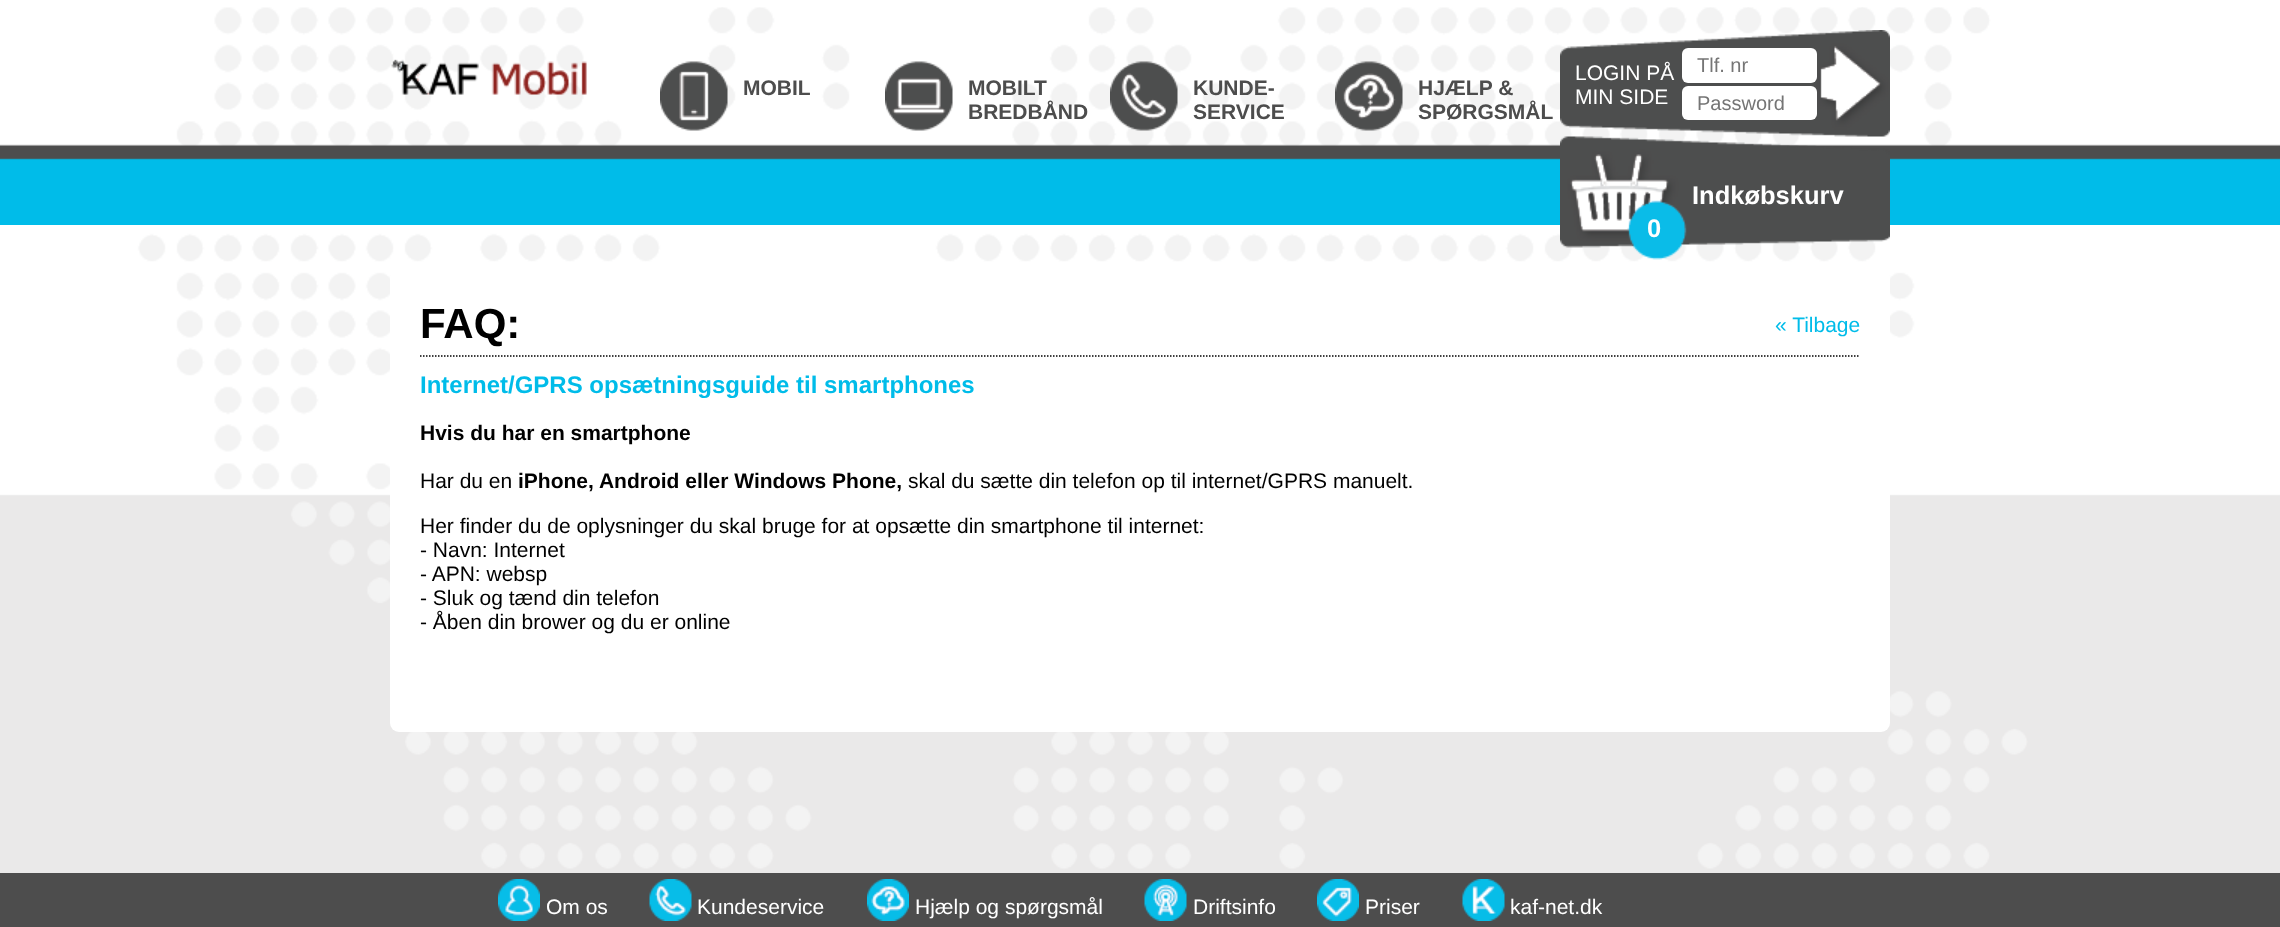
<svg xmlns="http://www.w3.org/2000/svg" width="2280" height="927" viewBox="0 0 2280 927">
  <rect width="100%" height="100%" fill="#ffffff"/>
  <image x="0" y="7" width="2280" height="866" href="img1.png"/>
  <image x="0" y="144" width="2280" height="81" href="img2.png"/>
  <image x="391" y="59" width="196" height="36" href="img3.png"/>
  <image x="660" y="61" width="68" height="70" href="img4.png"/>
  <text x="743" y="95" font-family="Liberation Sans" font-size="21" font-weight="bold" fill="#4d4d4d">MOBIL</text>
  <image x="885" y="61" width="68" height="70" href="img5.png"/>
  <text x="968" y="95" font-family="Liberation Sans" font-size="21" font-weight="bold" fill="#4d4d4d">MOBILT</text>
  <text x="968" y="119" font-family="Liberation Sans" font-size="21" font-weight="bold" fill="#4d4d4d">BREDBÅND</text>
  <image x="1110" y="61" width="68" height="70" href="img6.png"/>
  <text x="1193" y="95" font-family="Liberation Sans" font-size="21" font-weight="bold" fill="#4d4d4d">KUNDE-</text>
  <text x="1193" y="119" font-family="Liberation Sans" font-size="21" font-weight="bold" fill="#4d4d4d">SERVICE</text>
  <image x="1335" y="61" width="68" height="70" href="img7.png"/>
  <text x="1418" y="95" font-family="Liberation Sans" font-size="21" font-weight="bold" fill="#4d4d4d">HJÆLP &amp;</text>
  <text x="1418" y="119" font-family="Liberation Sans" font-size="21" font-weight="bold" fill="#4d4d4d">SPØRGSMÅL</text>
  <image x="1560" y="30" width="330" height="107" href="img8.png"/>
  <text x="1575" y="80" font-family="Liberation Sans" font-size="21" fill="#ffffff">LOGIN PÅ</text>
  <text x="1575" y="104" font-family="Liberation Sans" font-size="21" fill="#ffffff">MIN SIDE</text>
  <rect x="1682" y="48" width="135" height="35" rx="6" fill="#ffffff"/>
  <text x="1697" y="72" font-family="Liberation Sans" font-size="20" fill="#757575">Tlf. nr</text>
  <rect x="1682" y="86" width="135" height="34" rx="6" fill="#ffffff"/>
  <text x="1697" y="110" font-family="Liberation Sans" font-size="20" fill="#757575">Password</text>
  <image x="1560" y="136" width="330" height="124" href="img9.png"/>
  <text x="1692" y="204" font-family="Liberation Sans" font-size="25.5" font-weight="bold" fill="#ffffff">Indkøbskurv</text>
  <text x="1647" y="237" font-family="Liberation Sans" font-size="25.5" font-weight="bold" fill="#ffffff">0</text>
  <rect x="390" y="270" width="1500" height="462" rx="9" fill="#ffffff"/>
  <path d="M420 356H1860" fill="none" stroke="#000000" stroke-width="1.5" stroke-dasharray="1.5 1.5"/>
  <text x="420" y="338" font-family="Liberation Sans" font-size="42" font-weight="bold" fill="#000000">FAQ:</text>
  <text x="1775" y="332" font-family="Liberation Sans" font-size="21" fill="#00bce9">« Tilbage</text>
  <text x="420" y="393" font-family="Liberation Sans" font-size="24" font-weight="bold" fill="#00bce9">Internet/GPRS opsætningsguide til smartphones</text>
  <text x="420" y="440" font-family="Liberation Sans" font-size="21" font-weight="bold" fill="#000000">Hvis du har en smartphone</text>
  <text x="420" y="488" font-family="Liberation Sans" font-size="21" fill="#000000">Har du en</text>
  <text x="518" y="488" font-family="Liberation Sans" font-size="21" font-weight="bold" fill="#000000">iPhone, Android eller Windows Phone,</text>
  <text x="908" y="488" font-family="Liberation Sans" font-size="21" fill="#000000">skal du sætte din telefon op til internet/GPRS manuelt.</text>
  <text x="420" y="533" font-family="Liberation Sans" font-size="21" fill="#000000">Her finder du de oplysninger du skal bruge for at opsætte din smartphone til internet:</text>
  <text x="420" y="557" font-family="Liberation Sans" font-size="21" fill="#000000">- Navn: Internet</text>
  <text x="420" y="581" font-family="Liberation Sans" font-size="21" fill="#000000">- APN: websp</text>
  <text x="420" y="605" font-family="Liberation Sans" font-size="21" fill="#000000">- Sluk og tænd din telefon</text>
  <text x="420" y="629" font-family="Liberation Sans" font-size="21" fill="#000000">- Åben din brower og du er online</text>
  <rect x="0" y="873" width="2280" height="54" fill="#4d4d4d"/>
  <image x="498" y="879" width="42" height="42" href="img10.png"/>
  <text x="546" y="914" font-family="Liberation Sans" font-size="21" fill="#ffffff">Om os</text>
  <image x="649" y="879" width="43" height="42" href="img11.png"/>
  <text x="697" y="914" font-family="Liberation Sans" font-size="21" fill="#ffffff">Kundeservice</text>
  <image x="867" y="879" width="42" height="42" href="img12.png"/>
  <text x="915" y="914" font-family="Liberation Sans" font-size="21" fill="#ffffff">Hjælp og spørgsmål</text>
  <image x="1144" y="879" width="43" height="42" href="img13.png"/>
  <text x="1193" y="914" font-family="Liberation Sans" font-size="21" fill="#ffffff">Driftsinfo</text>
  <image x="1317" y="879" width="42" height="42" href="img14.png"/>
  <text x="1365" y="914" font-family="Liberation Sans" font-size="21" fill="#ffffff">Priser</text>
  <image x="1462" y="879" width="43" height="42" href="img15.png"/>
  <text x="1510" y="914" font-family="Liberation Sans" font-size="21" fill="#ffffff">kaf-net.dk</text>
</svg>
